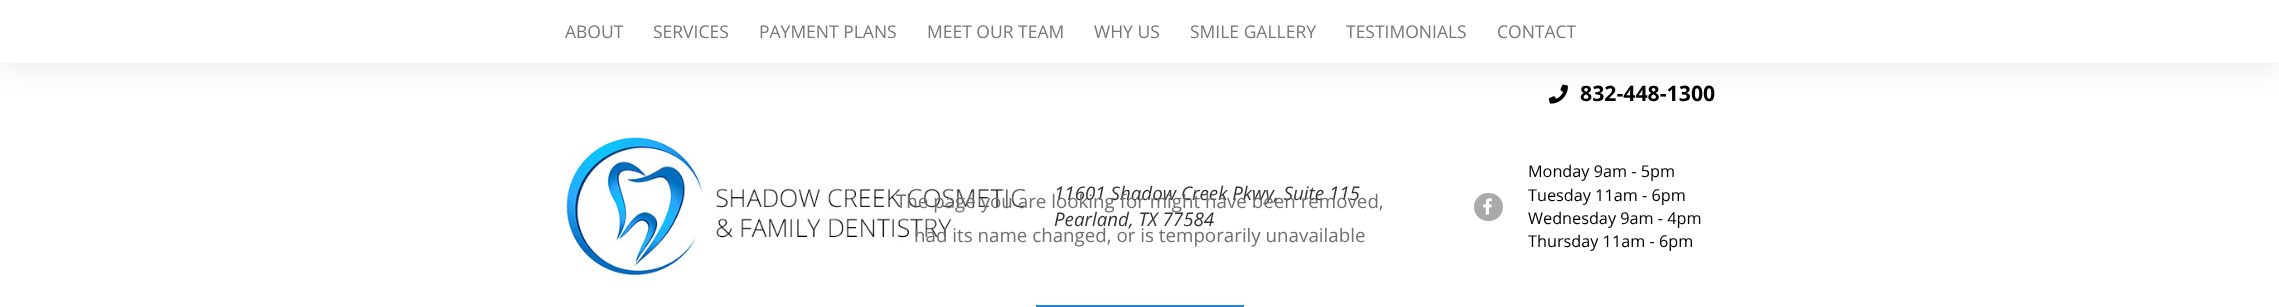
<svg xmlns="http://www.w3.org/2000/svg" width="2279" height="307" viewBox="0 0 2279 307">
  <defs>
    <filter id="blur1" x="-50%" y="-200%" width="200%" height="500%"><feGaussianBlur stdDeviation="15.5"/></filter>
  </defs>
  <rect width="100%" height="100%" fill="#ffffff"/>
  <rect x="1" y="1" width="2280" height="63" fill="#060606" fill-opacity="0.1" filter="url(#blur1)"/>
  <rect x="0" y="0" width="2279" height="63" fill="#ffffff"/>
  <text x="565" y="38" font-family="Open Sans" font-size="17.5" fill="#777777">ABOUT</text>
  <text x="653" y="38" font-family="Open Sans" font-size="17.5" fill="#777777">SERVICES</text>
  <text x="759" y="38" font-family="Open Sans" font-size="17.5" fill="#777777">PAYMENT PLANS</text>
  <text x="927" y="38" font-family="Open Sans" font-size="17.5" fill="#777777">MEET OUR TEAM</text>
  <text x="1094" y="38" font-family="Open Sans" font-size="17.5" fill="#777777">WHY US</text>
  <text x="1190" y="38" font-family="Open Sans" font-size="17.5" fill="#777777">SMILE GALLERY</text>
  <text x="1346" y="38" font-family="Open Sans" font-size="17.5" fill="#777777">TESTIMONIALS</text>
  <text x="1497" y="38" font-family="Open Sans" font-size="17.5" fill="#777777">CONTACT</text>
  <image x="1548" y="84" width="20" height="20" href="img1.png"/>
  <text x="1580" y="101" font-family="Open Sans" font-size="21.25" font-weight="bold" fill="#000000">832-448-1300</text>
  <image x="565" y="137" width="460" height="138" href="img2.png"/>
  <text x="1054" y="200" font-family="Open Sans" font-size="18.75" font-style="italic" fill="#333333">11601 Shadow Creek Pkwy, Suite 115</text>
  <text x="1054" y="226" font-family="Open Sans" font-size="18.75" font-style="italic" fill="#333333">Pearland, TX 77584</text>
  <rect x="1474" y="193" width="29" height="28" rx="14" fill="#aaaaaa"/>
  <image x="1483" y="198" width="9" height="17" href="img3.png"/>
  <text x="1528" y="177" font-family="Open Sans" font-size="16.25" fill="#000000">Monday 9am - 5pm</text>
  <text x="1528" y="201" font-family="Open Sans" font-size="16.25" fill="#000000">Tuesday 11am - 6pm</text>
  <text x="1528" y="224" font-family="Open Sans" font-size="16.25" fill="#000000">Wednesday 9am - 4pm</text>
  <text x="1528" y="247" font-family="Open Sans" font-size="16.25" fill="#000000">Thursday 11am - 6pm</text>
  <text x="896" y="208" font-family="Open Sans" font-size="18.75" fill="#6f6f6f">The page you are looking for might have been removed,</text>
  <text x="914" y="242" font-family="Open Sans" font-size="18.75" fill="#6f6f6f">had its name changed, or is temporarily unavailable</text>
  <rect x="1036" y="305" width="208" height="2" fill="#2488dd"/>
</svg>
